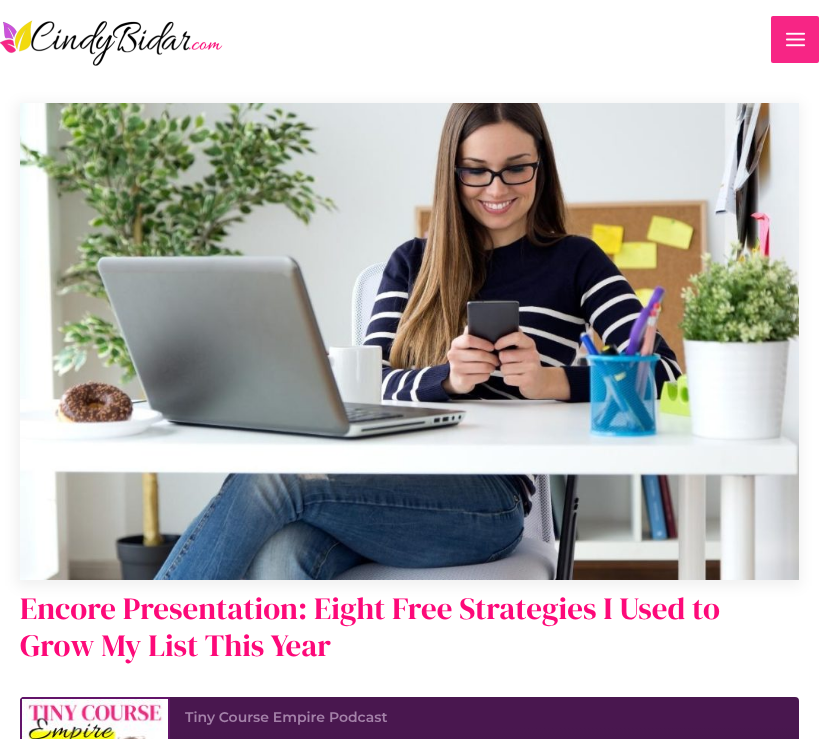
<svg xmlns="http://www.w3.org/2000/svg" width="819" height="739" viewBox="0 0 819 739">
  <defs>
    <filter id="blur1" x="-50%" y="-200%" width="200%" height="500%"><feGaussianBlur stdDeviation="6.5"/></filter>
    <linearGradient id="g1" gradientUnits="userSpaceOnUse" x1="410" y1="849" x2="409" y2="695"><stop offset="0.01" stop-color="#340f39"/><stop offset="0.78" stop-color="#49174f"/></linearGradient>
  </defs>
  <rect width="100%" height="100%" fill="#ffffff"/>
  <image x="0" y="20" width="223" height="46" href="img1.png"/>
  <rect x="771" y="16" width="48" height="47" rx="2" fill="#f72585"/>
  <image x="785" y="32" width="21" height="15" href="img2.png"/>
  <rect x="16" y="103" width="785" height="483" fill="#000000" fill-opacity="0.06" filter="url(#blur1)"/>
  <image x="20" y="103" width="779" height="477" href="img3.png"/>
  <text x="20" y="619" font-family="DM Serif Display" font-size="31" fill="#fd0979">Encore Presentation: Eight Free Strategies I Used to</text>
  <text x="20" y="656" font-family="DM Serif Display" font-size="31" fill="#fd0979">Grow My List This Year</text>
  <rect x="20" y="697" width="779" height="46" rx="4" fill="url(#g1)"/>
  <path d="M24 697C22 697 20 699 20 701V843C20 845 22 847 24 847H170V697ZM22 699V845H168V699Z" fill="#62146a" fill-rule="evenodd"/>
  <image x="22" y="699" width="146" height="40" href="img4.png"/>
  <text x="185" y="722" font-family="Montserrat" font-size="14" font-weight="600" fill="#a481a9">Tiny Course Empire Podcast</text>
</svg>
